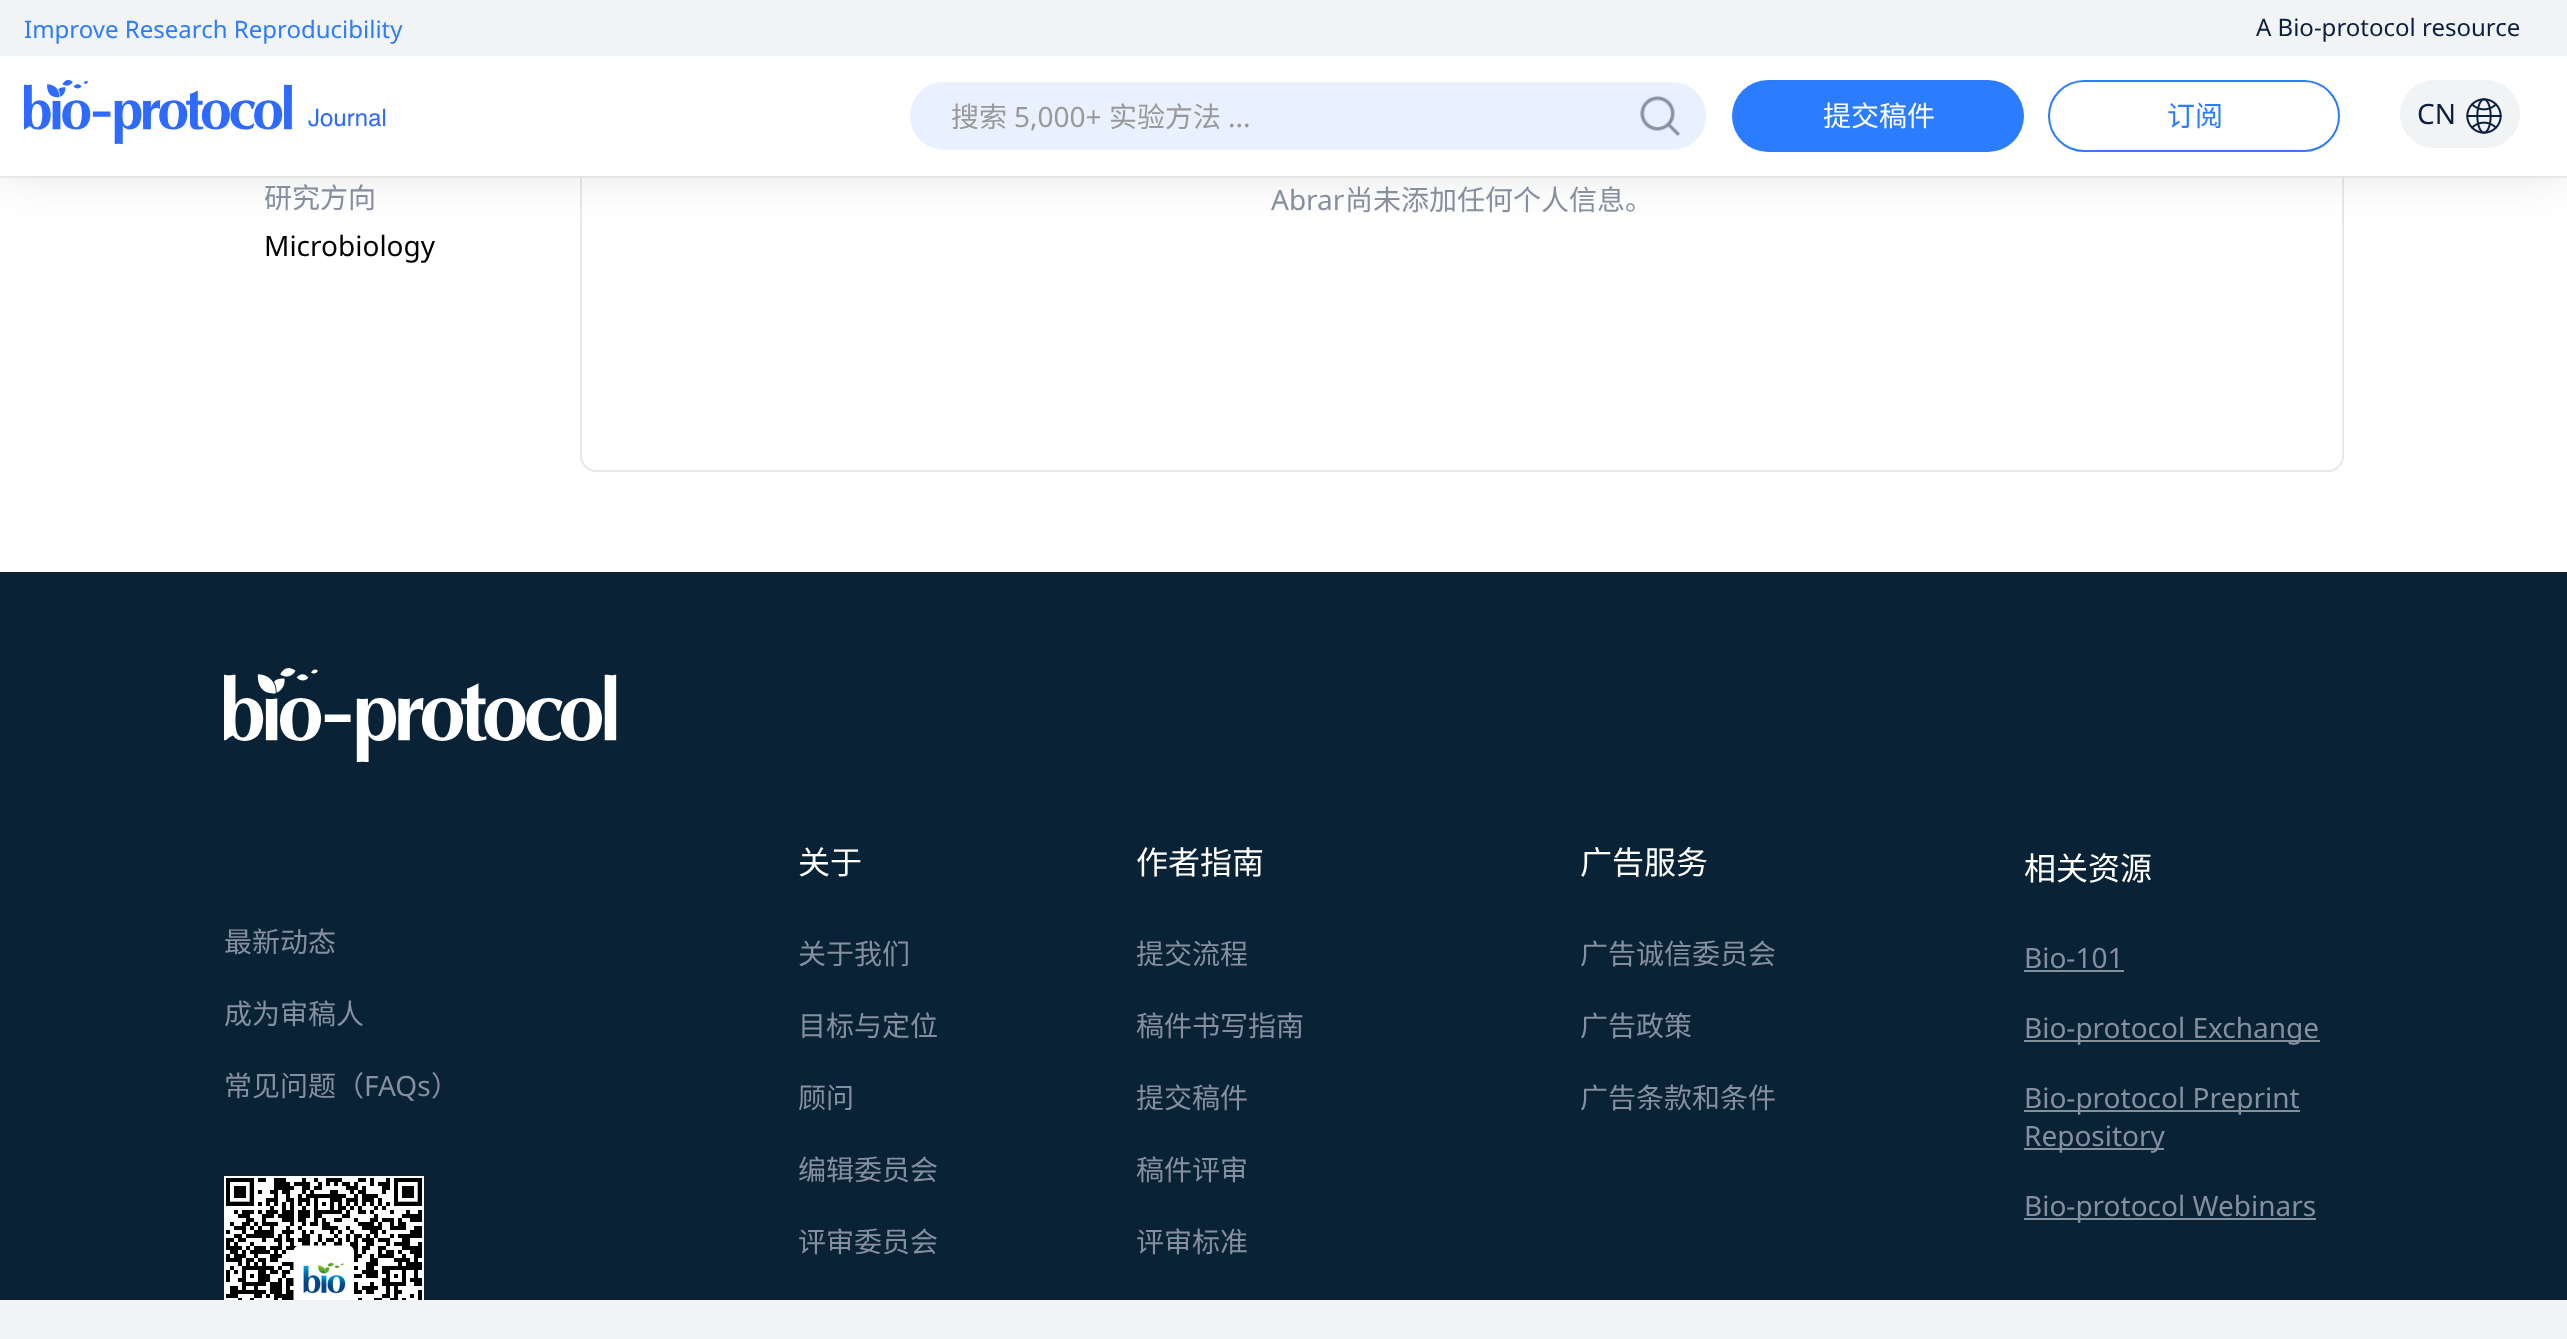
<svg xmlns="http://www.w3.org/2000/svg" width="2567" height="1339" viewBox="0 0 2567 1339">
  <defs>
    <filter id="blur1" x="-50%" y="-200%" width="200%" height="500%"><feGaussianBlur stdDeviation="24"/></filter>
  </defs>
  <rect width="100%" height="100%" fill="#ffffff"/>
  <rect x="581" y="-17" width="1762" height="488" rx="15" fill="none" stroke="#e6e8ec" stroke-width="2"/>
  <rect x="0" y="176" width="2567" height="2" fill="#edf1f4"/>
  <rect x="0" y="0" width="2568" height="176" fill="#000000" fill-opacity="0.1" filter="url(#blur1)"/>
  <rect x="0" y="56" width="2567" height="120" fill="#ffffff"/>
  <rect x="0" y="0" width="2567" height="56" fill="#f2f3f5"/>
  <text x="24" y="38" font-family="Noto Sans" font-size="24" fill="#2b7cff">Improve Research Reproducibility</text>
  <text x="2256" y="36" font-family="Noto Sans" font-size="24" fill="#0b1f40">A Bio-protocol resource</text>
  <image x="24" y="80" width="362" height="64" href="img1.png"/>
  <rect x="909" y="81" width="798" height="70" rx="35" fill="#e9f1ff" stroke="#ffffff" stroke-width="2"/>
  <text x="951" y="127" font-family="Noto Sans CJK SC" font-size="28" fill="#999999">搜索</text>
  <text x="1014" y="127" font-family="Noto Sans" font-size="28" fill="#999999">5,000+</text>
  <text x="1109" y="127" font-family="Noto Sans CJK SC" font-size="28" fill="#999999">实验方法</text>
  <text x="1228" y="127" font-family="Noto Sans" font-size="28" fill="#999999">...</text>
  <image x="1640" y="96" width="40" height="40" href="img2.png"/>
  <rect x="1732" y="80" width="292" height="72" rx="36" fill="#2b7cff"/>
  <text x="1823" y="126" font-family="Noto Sans CJK SC" font-size="28" fill="#ffffff">提交稿件</text>
  <rect x="2049" y="81" width="290" height="70" rx="35" fill="none" stroke="#2b7cff" stroke-width="2"/>
  <text x="2167" y="126" font-family="Noto Sans CJK SC" font-size="28" fill="#2b7cff">订阅</text>
  <rect x="2400" y="80" width="120" height="68" rx="34" fill="#f2f3f5"/>
  <text x="2417" y="124" font-family="Noto Sans" font-size="28" fill="#0b1f40">CN</text>
  <image x="2466" y="98" width="36" height="36" href="img3.png"/>
  <text x="264" y="208" font-family="Noto Sans CJK SC" font-size="28" fill="#858f9f">研究方向</text>
  <text x="264" y="256" font-family="Noto Sans" font-size="28" fill="#000000">Microbiology</text>
  <text x="1271" y="210" font-family="Noto Sans" font-size="28" fill="#858f9f">Abrar</text>
  <text x="1345" y="210" font-family="Noto Sans CJK SC" font-size="28" fill="#858f9f">尚未添加任何个人信息。</text>
  <rect x="0" y="572" width="2567" height="728" fill="#092235"/>
  <image x="224" y="668" width="393" height="94" href="img4.png"/>
  <text x="224" y="952" font-family="Noto Sans CJK SC" font-size="28" fill="#858f9f">最新动态</text>
  <text x="224" y="1024" font-family="Noto Sans CJK SC" font-size="28" fill="#858f9f">成为审稿人</text>
  <text x="224" y="1096" font-family="Noto Sans CJK SC" font-size="28" fill="#858f9f">常见问题（</text>
  <text x="364" y="1096" font-family="Noto Sans" font-size="28" fill="#858f9f">FAQs</text>
  <text x="431" y="1096" font-family="Noto Sans CJK SC" font-size="28" fill="#858f9f">）</text>
  <image x="224" y="1176" width="200" height="124" href="img5.png"/>
  <text x="798" y="874" font-family="Noto Sans CJK SC" font-size="32" fill="#ffffff">关于</text>
  <text x="798" y="964" font-family="Noto Sans CJK SC" font-size="28" fill="#858f9f">关于我们</text>
  <text x="798" y="1036" font-family="Noto Sans CJK SC" font-size="28" fill="#858f9f">目标与定位</text>
  <text x="798" y="1108" font-family="Noto Sans CJK SC" font-size="28" fill="#858f9f">顾问</text>
  <text x="798" y="1180" font-family="Noto Sans CJK SC" font-size="28" fill="#858f9f">编辑委员会</text>
  <text x="798" y="1252" font-family="Noto Sans CJK SC" font-size="28" fill="#858f9f">评审委员会</text>
  <text x="1136" y="874" font-family="Noto Sans CJK SC" font-size="32" fill="#ffffff">作者指南</text>
  <text x="1136" y="964" font-family="Noto Sans CJK SC" font-size="28" fill="#858f9f">提交流程</text>
  <text x="1136" y="1036" font-family="Noto Sans CJK SC" font-size="28" fill="#858f9f">稿件书写指南</text>
  <text x="1136" y="1108" font-family="Noto Sans CJK SC" font-size="28" fill="#858f9f">提交稿件</text>
  <text x="1136" y="1180" font-family="Noto Sans CJK SC" font-size="28" fill="#858f9f">稿件评审</text>
  <text x="1136" y="1252" font-family="Noto Sans CJK SC" font-size="28" fill="#858f9f">评审标准</text>
  <text x="1580" y="874" font-family="Noto Sans CJK SC" font-size="32" fill="#ffffff">广告服务</text>
  <text x="1580" y="964" font-family="Noto Sans CJK SC" font-size="28" fill="#858f9f">广告诚信委员会</text>
  <text x="1580" y="1036" font-family="Noto Sans CJK SC" font-size="28" fill="#858f9f">广告政策</text>
  <text x="1580" y="1108" font-family="Noto Sans CJK SC" font-size="28" fill="#858f9f">广告条款和条件</text>
  <text x="2024" y="880" font-family="Noto Sans CJK SC" font-size="32" fill="#ffffff">相关资源</text>
  <text x="2024" y="968" font-family="Noto Sans" font-size="28" fill="#858f9f">Bio-101</text>
  <rect x="2024" y="970" width="100" height="2" fill="#84919a"/>
  <rect x="2024" y="1040" width="296" height="2" fill="#84919a"/>
  <text x="2024" y="1038" font-family="Noto Sans" font-size="28" fill="#858f9f">Bio-protocol Exchange</text>
  <rect x="2024" y="1110" width="276" height="2" fill="#84919a"/>
  <text x="2024" y="1108" font-family="Noto Sans" font-size="28" fill="#858f9f">Bio-protocol Preprint</text>
  <rect x="2024" y="1148" width="140" height="2" fill="#84919a"/>
  <text x="2024" y="1146" font-family="Noto Sans" font-size="28" fill="#858f9f">Repository</text>
  <rect x="2024" y="1218" width="292" height="2" fill="#84919a"/>
  <text x="2024" y="1216" font-family="Noto Sans" font-size="28" fill="#858f9f">Bio-protocol Webinars</text>
  <rect x="0" y="1300" width="2567" height="39" fill="#f2f3f5"/>
</svg>
